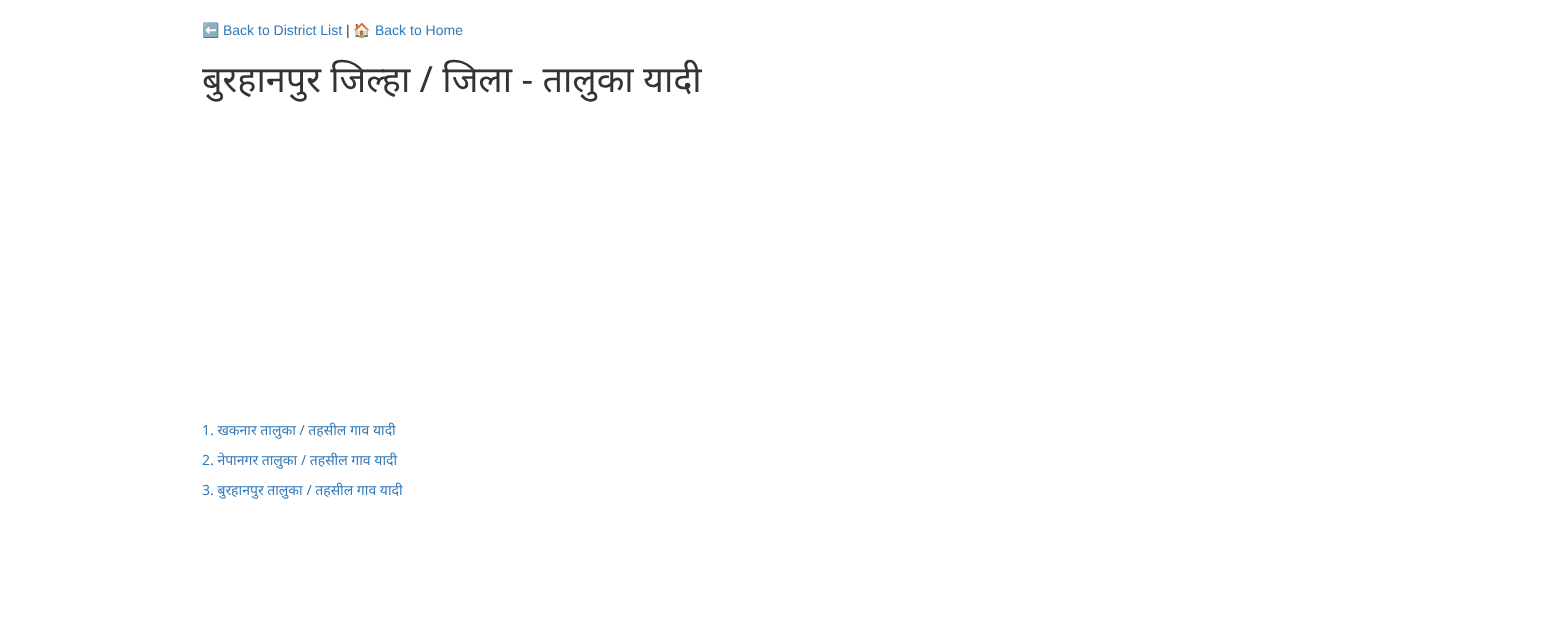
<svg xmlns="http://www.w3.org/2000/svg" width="1543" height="617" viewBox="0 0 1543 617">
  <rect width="100%" height="100%" fill="#ffffff"/>
  <text x="202" y="35" font-family="Noto Color Emoji" font-size="14" fill="#337ab7">⬅️</text>
  <text x="223" y="35" font-family="Liberation Sans" font-size="14" fill="#337ab7">Back to District List</text>
  <text x="346" y="35" font-family="Liberation Sans" font-size="14" fill="#333333">|</text>
  <text x="353" y="35" font-family="Noto Color Emoji" font-size="14" fill="#337ab7">🏠</text>
  <text x="375" y="35" font-family="Liberation Sans" font-size="14" fill="#337ab7">Back to Home</text>
  <text x="202" y="92" font-family="Noto Sans" font-size="36" fill="#333333">बुरहानपुर जिल्हा / जिला - तालुका यादी</text>
  <text x="202" y="435" font-family="Noto Sans" font-size="14" fill="#337ab7">1. खकनार तालुका / तहसील गाव यादी</text>
  <text x="202" y="465" font-family="Noto Sans" font-size="14" fill="#337ab7">2. नेपानगर तालुका / तहसील गाव यादी</text>
  <text x="202" y="495" font-family="Noto Sans" font-size="14" fill="#337ab7">3. बुरहानपुर तालुका / तहसील गाव यादी</text>
</svg>
